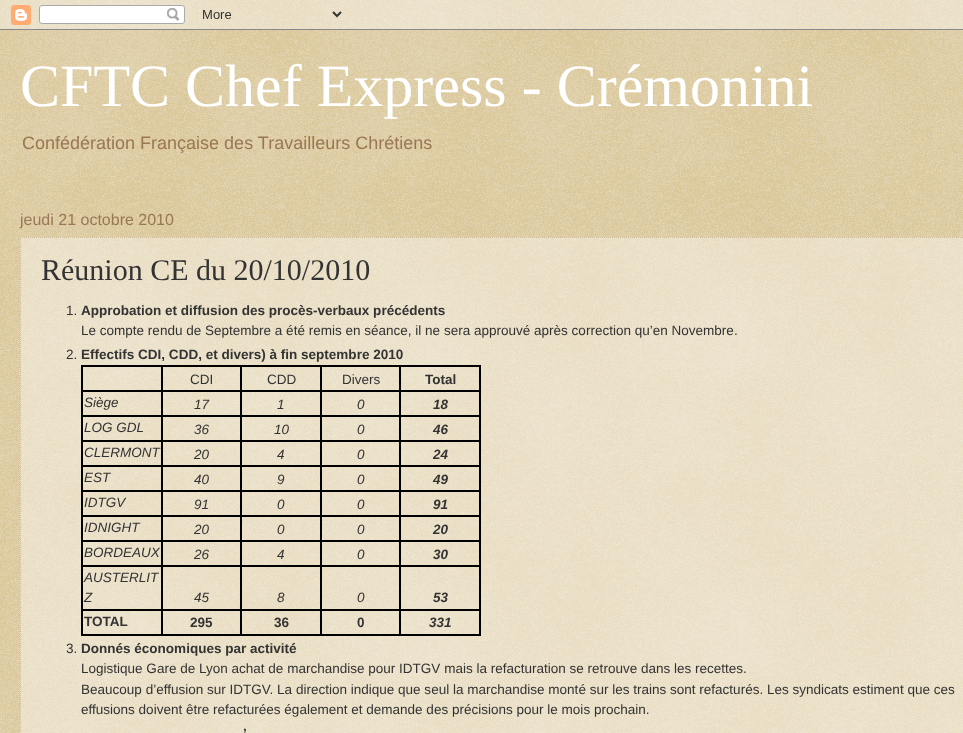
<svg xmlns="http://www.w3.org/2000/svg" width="963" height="733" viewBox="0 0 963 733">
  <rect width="100%" height="100%" fill="#c0a154"/>
  <image x="0" y="0" width="963" height="733" href="img1.png"/>
  <image x="0" y="0" width="963" height="30" href="img2.png"/>
  <text x="20" y="106" font-family="Liberation Serif" font-size="60" fill="#ffffff">CFTC Chef Express - Crémonini</text>
  <text x="22" y="149" font-family="Liberation Sans" font-size="18" fill="#997755">Confédération Française des Travailleurs Chrétiens</text>
  <text x="20" y="225" font-family="Liberation Sans" font-size="16" fill="#997755">jeudi 21 octobre 2010</text>
  <rect x="20" y="237" width="943" height="496" fill="#ffffff" fill-opacity="0.4"/>
  <path d="M20 237.5H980" fill="none" stroke="#ccbb99" stroke-dasharray="1 1"/>
  <path d="M20.5 237V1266" fill="none" stroke="#ccbb99" stroke-dasharray="1 1"/>
  <text x="41" y="280" font-family="Liberation Serif" font-size="30" fill="#333333">Réunion CE du 20/10/2010</text>
  <text x="66" y="315" font-family="Liberation Sans" font-size="13.52" fill="#333333">1.</text>
  <text x="81" y="315" font-family="Liberation Sans" font-size="13.52" font-weight="bold" fill="#333333">Approbation et diffusion des procès-verbaux précédents</text>
  <text x="81" y="335" font-family="Liberation Sans" font-size="13.52" fill="#333333">Le compte rendu de Septembre a été remis en séance, il ne sera approuvé après correction qu’en Novembre.</text>
  <text x="66" y="359" font-family="Liberation Sans" font-size="13.52" fill="#333333">2.</text>
  <text x="81" y="359" font-family="Liberation Sans" font-size="13.52" font-weight="bold" fill="#333333">Effectifs CDI, CDD, et divers) à fin septembre 2010</text>
  <rect x="81" y="365" width="400" height="2" fill="#000000"/>
  <rect x="479" y="390" width="2" height="246" fill="#000000"/>
  <rect x="479" y="365" width="2" height="27" fill="#000000"/>
  <rect x="399" y="634" width="82" height="2" fill="#000000"/>
  <rect x="399" y="609" width="2" height="27" fill="#000000"/>
  <rect x="399" y="609" width="82" height="2" fill="#000000"/>
  <rect x="399" y="565" width="2" height="46" fill="#000000"/>
  <rect x="399" y="565" width="82" height="2" fill="#000000"/>
  <rect x="399" y="540" width="2" height="27" fill="#000000"/>
  <rect x="399" y="540" width="82" height="2" fill="#000000"/>
  <rect x="399" y="515" width="2" height="27" fill="#000000"/>
  <rect x="399" y="515" width="82" height="2" fill="#000000"/>
  <rect x="399" y="490" width="2" height="27" fill="#000000"/>
  <rect x="399" y="490" width="82" height="2" fill="#000000"/>
  <rect x="399" y="465" width="2" height="27" fill="#000000"/>
  <rect x="399" y="465" width="82" height="2" fill="#000000"/>
  <rect x="399" y="440" width="2" height="27" fill="#000000"/>
  <rect x="399" y="440" width="82" height="2" fill="#000000"/>
  <rect x="399" y="415" width="2" height="27" fill="#000000"/>
  <rect x="399" y="415" width="82" height="2" fill="#000000"/>
  <rect x="399" y="390" width="2" height="27" fill="#000000"/>
  <rect x="399" y="390" width="82" height="2" fill="#000000"/>
  <rect x="399" y="365" width="2" height="27" fill="#000000"/>
  <rect x="320" y="634" width="81" height="2" fill="#000000"/>
  <rect x="320" y="609" width="2" height="27" fill="#000000"/>
  <rect x="320" y="609" width="81" height="2" fill="#000000"/>
  <rect x="320" y="565" width="2" height="46" fill="#000000"/>
  <rect x="320" y="565" width="81" height="2" fill="#000000"/>
  <rect x="320" y="540" width="2" height="27" fill="#000000"/>
  <rect x="320" y="540" width="81" height="2" fill="#000000"/>
  <rect x="320" y="515" width="2" height="27" fill="#000000"/>
  <rect x="320" y="515" width="81" height="2" fill="#000000"/>
  <rect x="320" y="490" width="2" height="27" fill="#000000"/>
  <rect x="320" y="490" width="81" height="2" fill="#000000"/>
  <rect x="320" y="465" width="2" height="27" fill="#000000"/>
  <rect x="320" y="465" width="81" height="2" fill="#000000"/>
  <rect x="320" y="440" width="2" height="27" fill="#000000"/>
  <rect x="320" y="440" width="81" height="2" fill="#000000"/>
  <rect x="320" y="415" width="2" height="27" fill="#000000"/>
  <rect x="320" y="415" width="81" height="2" fill="#000000"/>
  <rect x="320" y="390" width="2" height="27" fill="#000000"/>
  <rect x="320" y="390" width="81" height="2" fill="#000000"/>
  <rect x="320" y="365" width="2" height="27" fill="#000000"/>
  <rect x="240" y="634" width="82" height="2" fill="#000000"/>
  <rect x="240" y="609" width="2" height="27" fill="#000000"/>
  <rect x="240" y="609" width="82" height="2" fill="#000000"/>
  <rect x="240" y="565" width="2" height="46" fill="#000000"/>
  <rect x="240" y="565" width="82" height="2" fill="#000000"/>
  <rect x="240" y="540" width="2" height="27" fill="#000000"/>
  <rect x="240" y="540" width="82" height="2" fill="#000000"/>
  <rect x="240" y="515" width="2" height="27" fill="#000000"/>
  <rect x="240" y="515" width="82" height="2" fill="#000000"/>
  <rect x="240" y="490" width="2" height="27" fill="#000000"/>
  <rect x="240" y="490" width="82" height="2" fill="#000000"/>
  <rect x="240" y="465" width="2" height="27" fill="#000000"/>
  <rect x="240" y="465" width="82" height="2" fill="#000000"/>
  <rect x="240" y="440" width="2" height="27" fill="#000000"/>
  <rect x="240" y="440" width="82" height="2" fill="#000000"/>
  <rect x="240" y="415" width="2" height="27" fill="#000000"/>
  <rect x="240" y="415" width="82" height="2" fill="#000000"/>
  <rect x="240" y="390" width="2" height="27" fill="#000000"/>
  <rect x="240" y="390" width="82" height="2" fill="#000000"/>
  <rect x="240" y="365" width="2" height="27" fill="#000000"/>
  <rect x="161" y="634" width="81" height="2" fill="#000000"/>
  <rect x="161" y="609" width="2" height="27" fill="#000000"/>
  <rect x="161" y="609" width="81" height="2" fill="#000000"/>
  <rect x="161" y="565" width="2" height="46" fill="#000000"/>
  <rect x="161" y="565" width="81" height="2" fill="#000000"/>
  <rect x="161" y="540" width="2" height="27" fill="#000000"/>
  <rect x="161" y="540" width="81" height="2" fill="#000000"/>
  <rect x="161" y="515" width="2" height="27" fill="#000000"/>
  <rect x="161" y="515" width="81" height="2" fill="#000000"/>
  <rect x="161" y="490" width="2" height="27" fill="#000000"/>
  <rect x="161" y="490" width="81" height="2" fill="#000000"/>
  <rect x="161" y="465" width="2" height="27" fill="#000000"/>
  <rect x="161" y="465" width="81" height="2" fill="#000000"/>
  <rect x="161" y="440" width="2" height="27" fill="#000000"/>
  <rect x="161" y="440" width="81" height="2" fill="#000000"/>
  <rect x="161" y="415" width="2" height="27" fill="#000000"/>
  <rect x="161" y="415" width="81" height="2" fill="#000000"/>
  <rect x="161" y="390" width="2" height="27" fill="#000000"/>
  <rect x="161" y="390" width="81" height="2" fill="#000000"/>
  <rect x="161" y="365" width="2" height="27" fill="#000000"/>
  <rect x="81" y="634" width="82" height="2" fill="#000000"/>
  <rect x="81" y="609" width="2" height="27" fill="#000000"/>
  <rect x="81" y="609" width="82" height="2" fill="#000000"/>
  <rect x="81" y="565" width="2" height="46" fill="#000000"/>
  <rect x="81" y="565" width="82" height="2" fill="#000000"/>
  <rect x="81" y="540" width="2" height="27" fill="#000000"/>
  <rect x="81" y="540" width="82" height="2" fill="#000000"/>
  <rect x="81" y="515" width="2" height="27" fill="#000000"/>
  <rect x="81" y="515" width="82" height="2" fill="#000000"/>
  <rect x="81" y="490" width="2" height="27" fill="#000000"/>
  <rect x="81" y="490" width="82" height="2" fill="#000000"/>
  <rect x="81" y="465" width="2" height="27" fill="#000000"/>
  <rect x="81" y="465" width="82" height="2" fill="#000000"/>
  <rect x="81" y="440" width="2" height="27" fill="#000000"/>
  <rect x="81" y="440" width="82" height="2" fill="#000000"/>
  <rect x="81" y="415" width="2" height="27" fill="#000000"/>
  <rect x="81" y="415" width="82" height="2" fill="#000000"/>
  <rect x="81" y="390" width="2" height="27" fill="#000000"/>
  <rect x="81" y="390" width="82" height="2" fill="#000000"/>
  <rect x="81" y="365" width="2" height="27" fill="#000000"/>
  <text x="190" y="384" font-family="Liberation Sans" font-size="13.5" fill="#333333">CDI</text>
  <text x="267" y="384" font-family="Liberation Sans" font-size="13.5" fill="#333333">CDD</text>
  <text x="342" y="384" font-family="Liberation Sans" font-size="13.5" fill="#333333">Divers</text>
  <text x="425" y="384" font-family="Liberation Sans" font-size="13.5" font-weight="bold" fill="#333333">Total</text>
  <text x="84" y="407" font-family="Liberation Sans" font-size="13.5" font-style="italic" fill="#333333">Siège</text>
  <text x="194" y="409" font-family="Liberation Sans" font-size="13.5" font-style="italic" fill="#333333">17</text>
  <text x="277" y="409" font-family="Liberation Sans" font-size="13.5" font-style="italic" fill="#333333">1</text>
  <text x="357" y="409" font-family="Liberation Sans" font-size="13.5" font-style="italic" fill="#333333">0</text>
  <text x="433" y="409" font-family="Liberation Sans" font-size="13.5" font-weight="bold" font-style="italic" fill="#333333">18</text>
  <text x="84" y="432" font-family="Liberation Sans" font-size="13.5" font-style="italic" fill="#333333">LOG GDL</text>
  <text x="194" y="434" font-family="Liberation Sans" font-size="13.5" font-style="italic" fill="#333333">36</text>
  <text x="274" y="434" font-family="Liberation Sans" font-size="13.5" font-style="italic" fill="#333333">10</text>
  <text x="357" y="434" font-family="Liberation Sans" font-size="13.5" font-style="italic" fill="#333333">0</text>
  <text x="433" y="434" font-family="Liberation Sans" font-size="13.5" font-weight="bold" font-style="italic" fill="#333333">46</text>
  <text x="84" y="457" font-family="Liberation Sans" font-size="13.5" font-style="italic" fill="#333333">CLERMONT</text>
  <text x="194" y="459" font-family="Liberation Sans" font-size="13.5" font-style="italic" fill="#333333">20</text>
  <text x="277" y="459" font-family="Liberation Sans" font-size="13.5" font-style="italic" fill="#333333">4</text>
  <text x="357" y="459" font-family="Liberation Sans" font-size="13.5" font-style="italic" fill="#333333">0</text>
  <text x="433" y="459" font-family="Liberation Sans" font-size="13.5" font-weight="bold" font-style="italic" fill="#333333">24</text>
  <text x="84" y="482" font-family="Liberation Sans" font-size="13.5" font-style="italic" fill="#333333">EST</text>
  <text x="194" y="484" font-family="Liberation Sans" font-size="13.5" font-style="italic" fill="#333333">40</text>
  <text x="277" y="484" font-family="Liberation Sans" font-size="13.5" font-style="italic" fill="#333333">9</text>
  <text x="357" y="484" font-family="Liberation Sans" font-size="13.5" font-style="italic" fill="#333333">0</text>
  <text x="433" y="484" font-family="Liberation Sans" font-size="13.5" font-weight="bold" font-style="italic" fill="#333333">49</text>
  <text x="84" y="507" font-family="Liberation Sans" font-size="13.5" font-style="italic" fill="#333333">IDTGV</text>
  <text x="194" y="509" font-family="Liberation Sans" font-size="13.5" font-style="italic" fill="#333333">91</text>
  <text x="277" y="509" font-family="Liberation Sans" font-size="13.5" font-style="italic" fill="#333333">0</text>
  <text x="357" y="509" font-family="Liberation Sans" font-size="13.5" font-style="italic" fill="#333333">0</text>
  <text x="433" y="509" font-family="Liberation Sans" font-size="13.5" font-weight="bold" font-style="italic" fill="#333333">91</text>
  <text x="84" y="532" font-family="Liberation Sans" font-size="13.5" font-style="italic" fill="#333333">IDNIGHT</text>
  <text x="194" y="534" font-family="Liberation Sans" font-size="13.5" font-style="italic" fill="#333333">20</text>
  <text x="277" y="534" font-family="Liberation Sans" font-size="13.5" font-style="italic" fill="#333333">0</text>
  <text x="357" y="534" font-family="Liberation Sans" font-size="13.5" font-style="italic" fill="#333333">0</text>
  <text x="433" y="534" font-family="Liberation Sans" font-size="13.5" font-weight="bold" font-style="italic" fill="#333333">20</text>
  <text x="84" y="557" font-family="Liberation Sans" font-size="13.5" font-style="italic" fill="#333333">BORDEAUX</text>
  <text x="194" y="559" font-family="Liberation Sans" font-size="13.5" font-style="italic" fill="#333333">26</text>
  <text x="277" y="559" font-family="Liberation Sans" font-size="13.5" font-style="italic" fill="#333333">4</text>
  <text x="357" y="559" font-family="Liberation Sans" font-size="13.5" font-style="italic" fill="#333333">0</text>
  <text x="433" y="559" font-family="Liberation Sans" font-size="13.5" font-weight="bold" font-style="italic" fill="#333333">30</text>
  <text x="84" y="582" font-family="Liberation Sans" font-size="13.5" font-style="italic" fill="#333333">AUSTERLIT</text>
  <text x="84" y="602" font-family="Liberation Sans" font-size="13.5" font-style="italic" fill="#333333">Z</text>
  <text x="194" y="602" font-family="Liberation Sans" font-size="13.5" font-style="italic" fill="#333333">45</text>
  <text x="277" y="602" font-family="Liberation Sans" font-size="13.5" font-style="italic" fill="#333333">8</text>
  <text x="357" y="602" font-family="Liberation Sans" font-size="13.5" font-style="italic" fill="#333333">0</text>
  <text x="433" y="602" font-family="Liberation Sans" font-size="13.5" font-weight="bold" font-style="italic" fill="#333333">53</text>
  <text x="84" y="626" font-family="Liberation Sans" font-size="13.5" font-weight="bold" fill="#333333">TOTAL</text>
  <text x="190" y="627" font-family="Liberation Sans" font-size="13.5" font-weight="bold" fill="#333333">295</text>
  <text x="274" y="627" font-family="Liberation Sans" font-size="13.5" font-weight="bold" fill="#333333">36</text>
  <text x="357" y="627" font-family="Liberation Sans" font-size="13.5" font-weight="bold" fill="#333333">0</text>
  <text x="429" y="627" font-family="Liberation Sans" font-size="13.5" font-weight="bold" font-style="italic" fill="#333333">331</text>
  <text x="66" y="653" font-family="Liberation Sans" font-size="13.52" fill="#333333">3.</text>
  <text x="81" y="653" font-family="Liberation Sans" font-size="13.52" font-weight="bold" fill="#333333">Donnés économiques par activité</text>
  <text x="81" y="673" font-family="Liberation Sans" font-size="13.52" fill="#333333">Logistique Gare de Lyon achat de marchandise pour IDTGV mais la refacturation se retrouve dans les recettes.</text>
  <text x="81" y="694" font-family="Liberation Sans" font-size="13.52" fill="#333333">Beaucoup d’effusion sur IDTGV. La direction indique que seul la marchandise monté sur les trains sont refacturés. Les syndicats estiment que ces</text>
  <text x="81" y="714" font-family="Liberation Sans" font-size="13.52" fill="#333333">effusions doivent être refacturées également et demande des précisions pour le mois prochain.</text>
  <text x="243" y="738" font-family="Liberation Sans" font-size="13.52" font-weight="bold" fill="#333333">’</text>
</svg>
